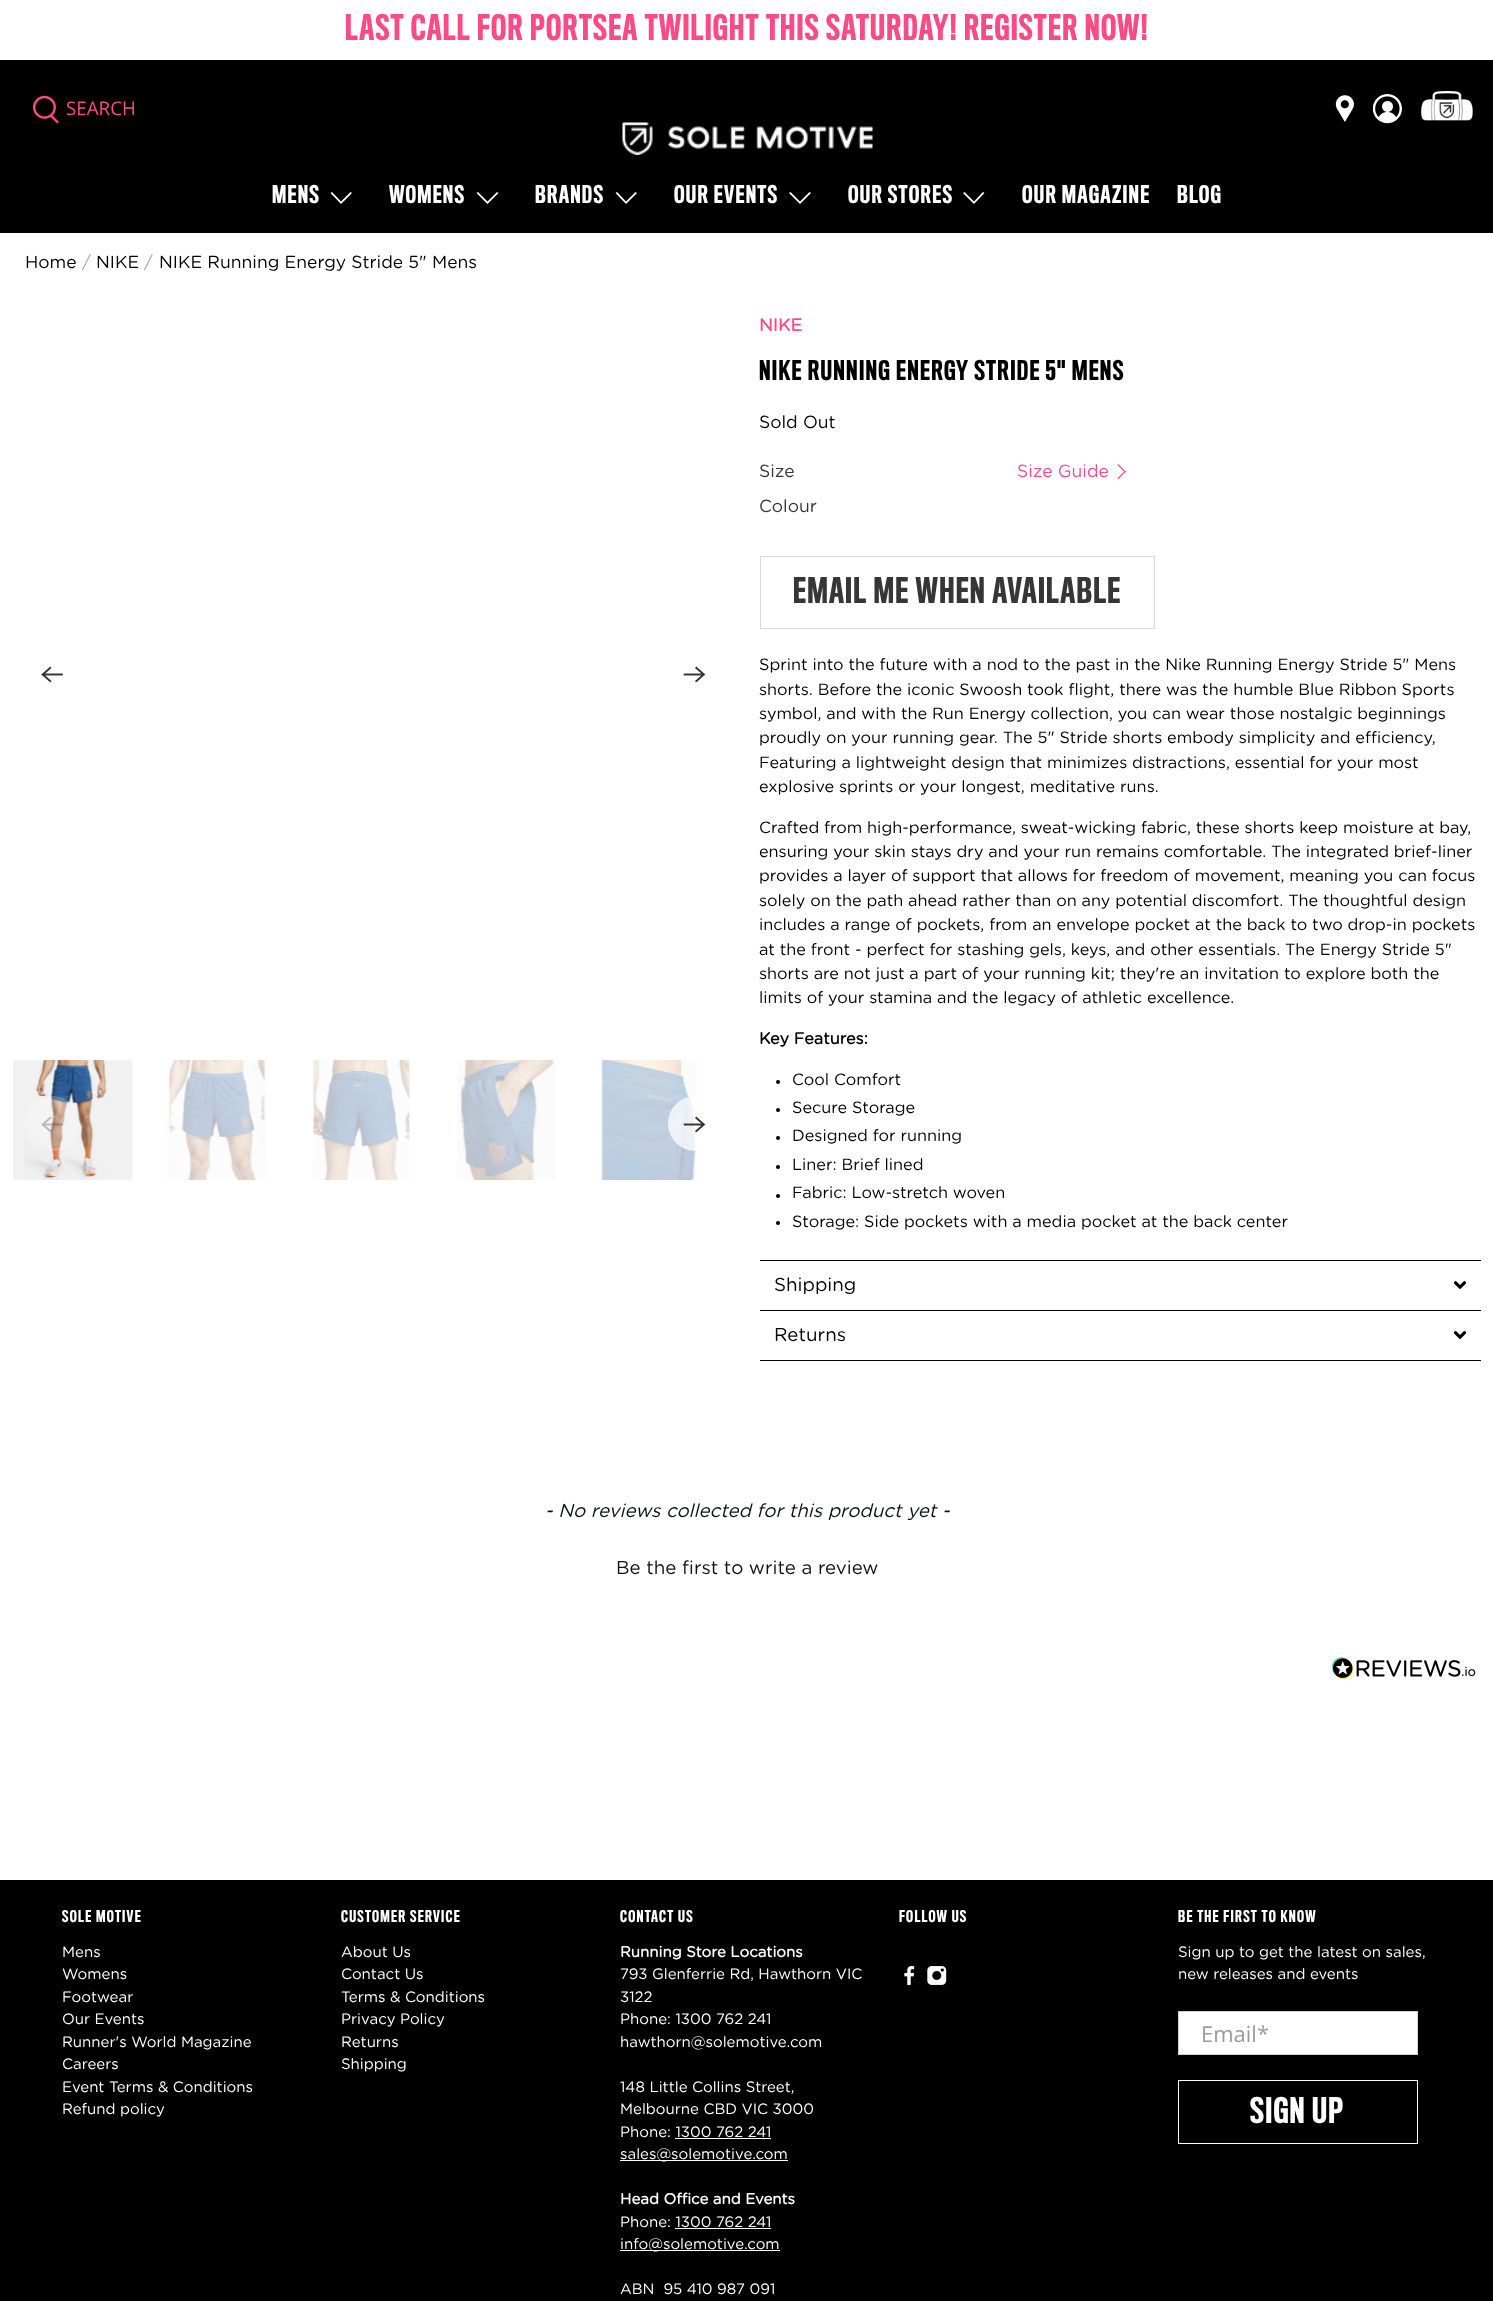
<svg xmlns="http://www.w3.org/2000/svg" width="1493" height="2301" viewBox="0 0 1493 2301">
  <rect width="100%" height="100%" fill="#ffffff"/>
  <text x="345" y="40" font-family="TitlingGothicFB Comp" font-size="32.5" font-weight="500" letter-spacing="1.25" fill="#fb4a85">LAST CALL FOR PORTSEA TWILIGHT THIS SATURDAY! REGISTER NOW!</text>
  <rect x="0" y="60" width="1493" height="173" fill="#000000"/>
  <image x="33" y="95" width="26" height="29" href="img1.png"/>
  <text x="66" y="115" font-family="Open Sans" font-size="18.75" fill="#fb4a85">SEARCH</text>
  <image x="1335" y="95" width="19" height="27" href="img2.png"/>
  <image x="1373" y="94" width="29" height="30" href="img3.png"/>
  <image x="1421" y="91" width="52" height="30" href="img4.png"/>
  <image x="622" y="122" width="251" height="33" href="img5.png"/>
  <text x="272" y="203" font-family="TitlingGothicFB Comp" font-size="22.5" font-weight="500" letter-spacing="1.25" fill="#ffffff">MENS</text>
  <path d="M341 204L330.5 193L332 192L341 201.5L350.5 192L352 193Z" fill="#ffffff"/>
  <text x="389" y="203" font-family="TitlingGothicFB Comp" font-size="22.5" font-weight="500" letter-spacing="1.25" fill="#ffffff">WOMENS</text>
  <path d="M487.5 204L476.5 193L478 192L487.5 201.5L497 192L498.5 193Z" fill="#ffffff"/>
  <text x="535" y="203" font-family="TitlingGothicFB Comp" font-size="22.5" font-weight="500" letter-spacing="1.25" fill="#ffffff">BRANDS</text>
  <path d="M626 204L615.5 193L617 192L626 201.5L635.5 192L637 193Z" fill="#ffffff"/>
  <text x="674" y="203" font-family="TitlingGothicFB Comp" font-size="22.5" font-weight="500" letter-spacing="1.25" fill="#ffffff">OUR EVENTS</text>
  <path d="M800 204L789 193L790.5 192L800 201.5L809.5 192L811 193Z" fill="#ffffff"/>
  <text x="848" y="203" font-family="TitlingGothicFB Comp" font-size="22.5" font-weight="500" letter-spacing="1.25" fill="#ffffff">OUR STORES</text>
  <path d="M974 204L963 193L964.5 192L974 201.5L983 192L984.5 193Z" fill="#ffffff"/>
  <text x="1022" y="203" font-family="TitlingGothicFB Comp" font-size="22.5" font-weight="500" letter-spacing="1.25" fill="#ffffff">OUR MAGAZINE</text>
  <text x="1177" y="203" font-family="TitlingGothicFB Comp" font-size="22.5" font-weight="500" letter-spacing="1.25" fill="#ffffff">BLOG</text>
  <text x="25" y="268" font-family="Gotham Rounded" font-size="17.5" fill="#000000">Home</text>
  <text x="82" y="268" font-family="Gotham Rounded" font-size="17.5" fill="#bba297">/</text>
  <text x="96" y="268" font-family="Gotham Rounded" font-size="17.5" fill="#000000">NIKE</text>
  <text x="144" y="268" font-family="Gotham Rounded" font-size="17.5" fill="#bba297">/</text>
  <text x="159" y="268" font-family="Gotham Rounded" font-size="17.5" fill="#000000">NIKE Running Energy Stride 5" Mens</text>
  <image x="41" y="666" width="22" height="17" href="img6.png"/>
  <image x="683" y="666" width="23" height="17" href="img7.png"/>
  <image x="13" y="1060" width="120" height="120" href="img8.png"/>
  <image x="167" y="1060" width="99" height="120" href="img9.png"/>
  <image x="312" y="1060" width="98" height="120" href="img10.png"/>
  <image x="457" y="1060" width="99" height="120" href="img11.png"/>
  <image x="601" y="1060" width="96" height="120" href="img12.png"/>
  <circle cx="52.5" cy="1123.5" r="27.5" fill="#ffffff" fill-opacity="0.22"/>
  <image x="41" y="1116" width="22" height="17" href="img13.png"/>
  <circle cx="695.5" cy="1123.5" r="27.5" fill="#ffffff" fill-opacity="0.75"/>
  <image x="683" y="1116" width="23" height="17" href="img14.png"/>
  <text x="759" y="331" font-family="Gotham Rounded" font-size="17.5" font-weight="bold" fill="#fb4a85">NIKE</text>
  <text x="759" y="380" font-family="TitlingGothicFB Comp" font-size="25" font-weight="500" letter-spacing="1.25" fill="#000000">NIKE RUNNING ENERGY STRIDE 5" MENS</text>
  <text x="759" y="428" font-family="Gotham Rounded" font-size="17.5" fill="#000000">Sold Out</text>
  <text x="759" y="477" font-family="Gotham Rounded" font-size="17.5" fill="#363636">Size</text>
  <text x="1017" y="477" font-family="Gotham Rounded" font-size="17.5" fill="#fb4a85">Size Guide</text>
  <image x="1117" y="464" width="9" height="16" href="img15.png"/>
  <text x="759" y="512" font-family="Gotham Rounded" font-size="17.5" fill="#363636">Colour</text>
  <rect x="760.5" y="556.5" width="394" height="72" fill="none" stroke="#dbdbdb"/>
  <text x="793" y="603" font-family="TitlingGothicFB Comp" font-size="32.5" font-weight="500" letter-spacing="1.25" fill="#363636">EMAIL ME WHEN AVAILABLE</text>
  <text x="759" y="670" font-family="Gotham Rounded" font-size="16.25" fill="#000000">Sprint into the future with a nod to the past in the Nike Running Energy Stride 5" Mens</text>
  <text x="759" y="695" font-family="Gotham Rounded" font-size="16.25" fill="#000000">shorts. Before the iconic Swoosh took flight, there was the humble Blue Ribbon Sports</text>
  <text x="759" y="719" font-family="Gotham Rounded" font-size="16.25" fill="#000000">symbol, and with the Run Energy collection, you can wear those nostalgic beginnings</text>
  <text x="759" y="743" font-family="Gotham Rounded" font-size="16.25" fill="#000000">proudly on your running gear. The 5" Stride shorts embody simplicity and efficiency,</text>
  <text x="759" y="768" font-family="Gotham Rounded" font-size="16.25" fill="#000000">Featuring a lightweight design that minimizes distractions, essential for your most</text>
  <text x="759" y="792" font-family="Gotham Rounded" font-size="16.25" fill="#000000">explosive sprints or your longest, meditative runs.</text>
  <text x="759" y="833" font-family="Gotham Rounded" font-size="16.25" fill="#000000">Crafted from high-performance, sweat-wicking fabric, these shorts keep moisture at bay,</text>
  <text x="759" y="857" font-family="Gotham Rounded" font-size="16.25" fill="#000000">ensuring your skin stays dry and your run remains comfortable. The integrated brief-liner</text>
  <text x="759" y="881" font-family="Gotham Rounded" font-size="16.25" fill="#000000">provides a layer of support that allows for freedom of movement, meaning you can focus</text>
  <text x="759" y="906" font-family="Gotham Rounded" font-size="16.25" fill="#000000">solely on the path ahead rather than on any potential discomfort. The thoughtful design</text>
  <text x="759" y="930" font-family="Gotham Rounded" font-size="16.25" fill="#000000">includes a range of pockets, from an envelope pocket at the back to two drop-in pockets</text>
  <text x="759" y="955" font-family="Gotham Rounded" font-size="16.25" fill="#000000">at the front - perfect for stashing gels, keys, and other essentials. The Energy Stride 5"</text>
  <text x="759" y="979" font-family="Gotham Rounded" font-size="16.25" fill="#000000">shorts are not just a part of your running kit; they're an invitation to explore both the</text>
  <text x="759" y="1003" font-family="Gotham Rounded" font-size="16.25" fill="#000000">limits of your stamina and the legacy of athletic excellence.</text>
  <text x="759" y="1044" font-family="Gotham Rounded" font-size="16.25" font-weight="bold" fill="#000000">Key Features:</text>
  <circle cx="778" cy="1082" r="2" fill="#000000"/>
  <text x="792" y="1085" font-family="Gotham Rounded" font-size="16.25" fill="#000000">Cool Comfort</text>
  <circle cx="778" cy="1110" r="2" fill="#000000"/>
  <text x="792" y="1113" font-family="Gotham Rounded" font-size="16.25" fill="#000000">Secure Storage</text>
  <circle cx="778" cy="1138" r="2" fill="#000000"/>
  <text x="792" y="1141" font-family="Gotham Rounded" font-size="16.25" fill="#000000">Designed for running</text>
  <circle cx="778" cy="1167" r="2" fill="#000000"/>
  <text x="792" y="1170" font-family="Gotham Rounded" font-size="16.25" fill="#000000">Liner: Brief lined</text>
  <circle cx="778" cy="1196" r="2" fill="#000000"/>
  <text x="792" y="1198" font-family="Gotham Rounded" font-size="16.25" fill="#000000">Fabric: Low-stretch woven</text>
  <circle cx="778" cy="1223" r="2" fill="#000000"/>
  <text x="792" y="1227" font-family="Gotham Rounded" font-size="16.25" fill="#000000">Storage: Side pockets with a media pocket at the back center</text>
  <rect x="760" y="1260" width="721" height="1" fill="#000000"/>
  <text x="774" y="1291" font-family="Gotham Rounded" font-size="18.75" fill="#000000">Shipping</text>
  <image x="1454" y="1281" width="12" height="8" href="img16.png"/>
  <rect x="760" y="1310" width="721" height="1" fill="#000000"/>
  <rect x="760" y="1360" width="721" height="1" fill="#000000"/>
  <text x="774" y="1341" font-family="Gotham Rounded" font-size="18.75" fill="#000000">Returns</text>
  <image x="1454" y="1331" width="12" height="8" href="img16.png"/>
  <text x="545" y="1517" font-family="Gotham Rounded" font-size="18.75" font-style="italic" fill="#0e1311">- No reviews collected for this product yet -</text>
  <text x="616" y="1574" font-family="Gotham Rounded" font-size="18.75" fill="#0e1311">Be the first to write a review</text>
  <image x="1331" y="1657" width="145" height="23" href="img17.png"/>
  <rect x="0" y="1880" width="1493" height="421" fill="#000000"/>
  <text x="62" y="1922" font-family="TitlingGothicFB Comp" font-size="15" font-weight="500" letter-spacing="1.25" fill="#ffffff">SOLE MOTIVE</text>
  <text x="62" y="1957" font-family="Gotham Rounded" font-size="15" fill="#ffffff">Mens</text>
  <text x="62" y="1979" font-family="Gotham Rounded" font-size="15" fill="#ffffff">Womens</text>
  <text x="62" y="2002" font-family="Gotham Rounded" font-size="15" fill="#ffffff">Footwear</text>
  <text x="62" y="2024" font-family="Gotham Rounded" font-size="15" fill="#ffffff">Our Events</text>
  <text x="62" y="2047" font-family="Gotham Rounded" font-size="15" fill="#ffffff">Runner's World Magazine</text>
  <text x="62" y="2069" font-family="Gotham Rounded" font-size="15" fill="#ffffff">Careers</text>
  <text x="62" y="2092" font-family="Gotham Rounded" font-size="15" fill="#ffffff">Event Terms &amp; Conditions</text>
  <text x="62" y="2114" font-family="Gotham Rounded" font-size="15" fill="#ffffff">Refund policy</text>
  <text x="341" y="1922" font-family="TitlingGothicFB Comp" font-size="15" font-weight="500" letter-spacing="1.25" fill="#ffffff">CUSTOMER SERVICE</text>
  <text x="341" y="1957" font-family="Gotham Rounded" font-size="15" fill="#ffffff">About Us</text>
  <text x="341" y="1979" font-family="Gotham Rounded" font-size="15" fill="#ffffff">Contact Us</text>
  <text x="341" y="2002" font-family="Gotham Rounded" font-size="15" fill="#ffffff">Terms &amp; Conditions</text>
  <text x="341" y="2024" font-family="Gotham Rounded" font-size="15" fill="#ffffff">Privacy Policy</text>
  <text x="341" y="2047" font-family="Gotham Rounded" font-size="15" fill="#ffffff">Returns</text>
  <text x="341" y="2069" font-family="Gotham Rounded" font-size="15" fill="#ffffff">Shipping</text>
  <text x="620" y="1922" font-family="TitlingGothicFB Comp" font-size="15" font-weight="500" letter-spacing="1.25" fill="#ffffff">CONTACT US</text>
  <text x="620" y="1957" font-family="Gotham Rounded" font-size="15" font-weight="bold" fill="#ffffff">Running Store Locations</text>
  <text x="620" y="1979" font-family="Gotham Rounded" font-size="15" fill="#ffffff">793 Glenferrie Rd, Hawthorn VIC</text>
  <text x="620" y="2002" font-family="Gotham Rounded" font-size="15" fill="#ffffff">3122</text>
  <text x="620" y="2024" font-family="Gotham Rounded" font-size="15" fill="#ffffff">Phone: 1300 762 241</text>
  <text x="620" y="2047" font-family="Gotham Rounded" font-size="15" fill="#ffffff">hawthorn@solemotive.com</text>
  <text x="620" y="2092" font-family="Gotham Rounded" font-size="15" fill="#ffffff">148 Little Collins Street,</text>
  <text x="620" y="2114" font-family="Gotham Rounded" font-size="15" fill="#ffffff">Melbourne CBD VIC 3000</text>
  <text x="620" y="2137" font-family="Gotham Rounded" font-size="15" fill="#ffffff">Phone: 1300 762 241</text>
  <rect x="675" y="2138" width="96" height="1" fill="#ffffff"/>
  <rect x="620" y="2160" width="168" height="1" fill="#ffffff"/>
  <text x="620" y="2159" font-family="Gotham Rounded" font-size="15" fill="#ffffff">sales@solemotive.com</text>
  <text x="620" y="2204" font-family="Gotham Rounded" font-size="15" font-weight="bold" fill="#ffffff">Head Office and Events</text>
  <text x="620" y="2227" font-family="Gotham Rounded" font-size="15" fill="#ffffff">Phone: 1300 762 241</text>
  <rect x="675" y="2228" width="96" height="1" fill="#ffffff"/>
  <rect x="620" y="2250" width="160" height="1" fill="#ffffff"/>
  <text x="620" y="2249" font-family="Gotham Rounded" font-size="15" fill="#ffffff">info@solemotive.com</text>
  <text x="620" y="2294" font-family="Gotham Rounded" font-size="15" fill="#ffffff" xml:space="preserve">ABN  95 410 987 091</text>
  <text x="899" y="1922" font-family="TitlingGothicFB Comp" font-size="15" font-weight="500" letter-spacing="1.25" fill="#ffffff">FOLLOW US</text>
  <image x="904" y="1966" width="11" height="19" href="img18.png"/>
  <image x="927" y="1966" width="20" height="19" href="img19.png"/>
  <text x="1178" y="1922" font-family="TitlingGothicFB Comp" font-size="15" font-weight="500" letter-spacing="1.25" fill="#ffffff">BE THE FIRST TO KNOW</text>
  <text x="1178" y="1957" font-family="Gotham Rounded" font-size="15" fill="#ffffff">Sign up to get the latest on sales,</text>
  <text x="1178" y="1979" font-family="Gotham Rounded" font-size="15" fill="#ffffff">new releases and events</text>
  <rect x="1178.5" y="2011.5" width="239" height="43" fill="#ffffff" stroke="#d3d3d3"/>
  <text x="1201" y="2042" font-family="Open Sans" font-size="22" fill="#9b9b9b">Email*</text>
  <rect x="1178.5" y="2080.5" width="239" height="63" fill="none" stroke="#ffffff"/>
  <text x="1250" y="2123" font-family="TitlingGothicFB Comp" font-size="32.5" font-weight="500" letter-spacing="1.25" fill="#ffffff">SIGN UP</text>
</svg>
